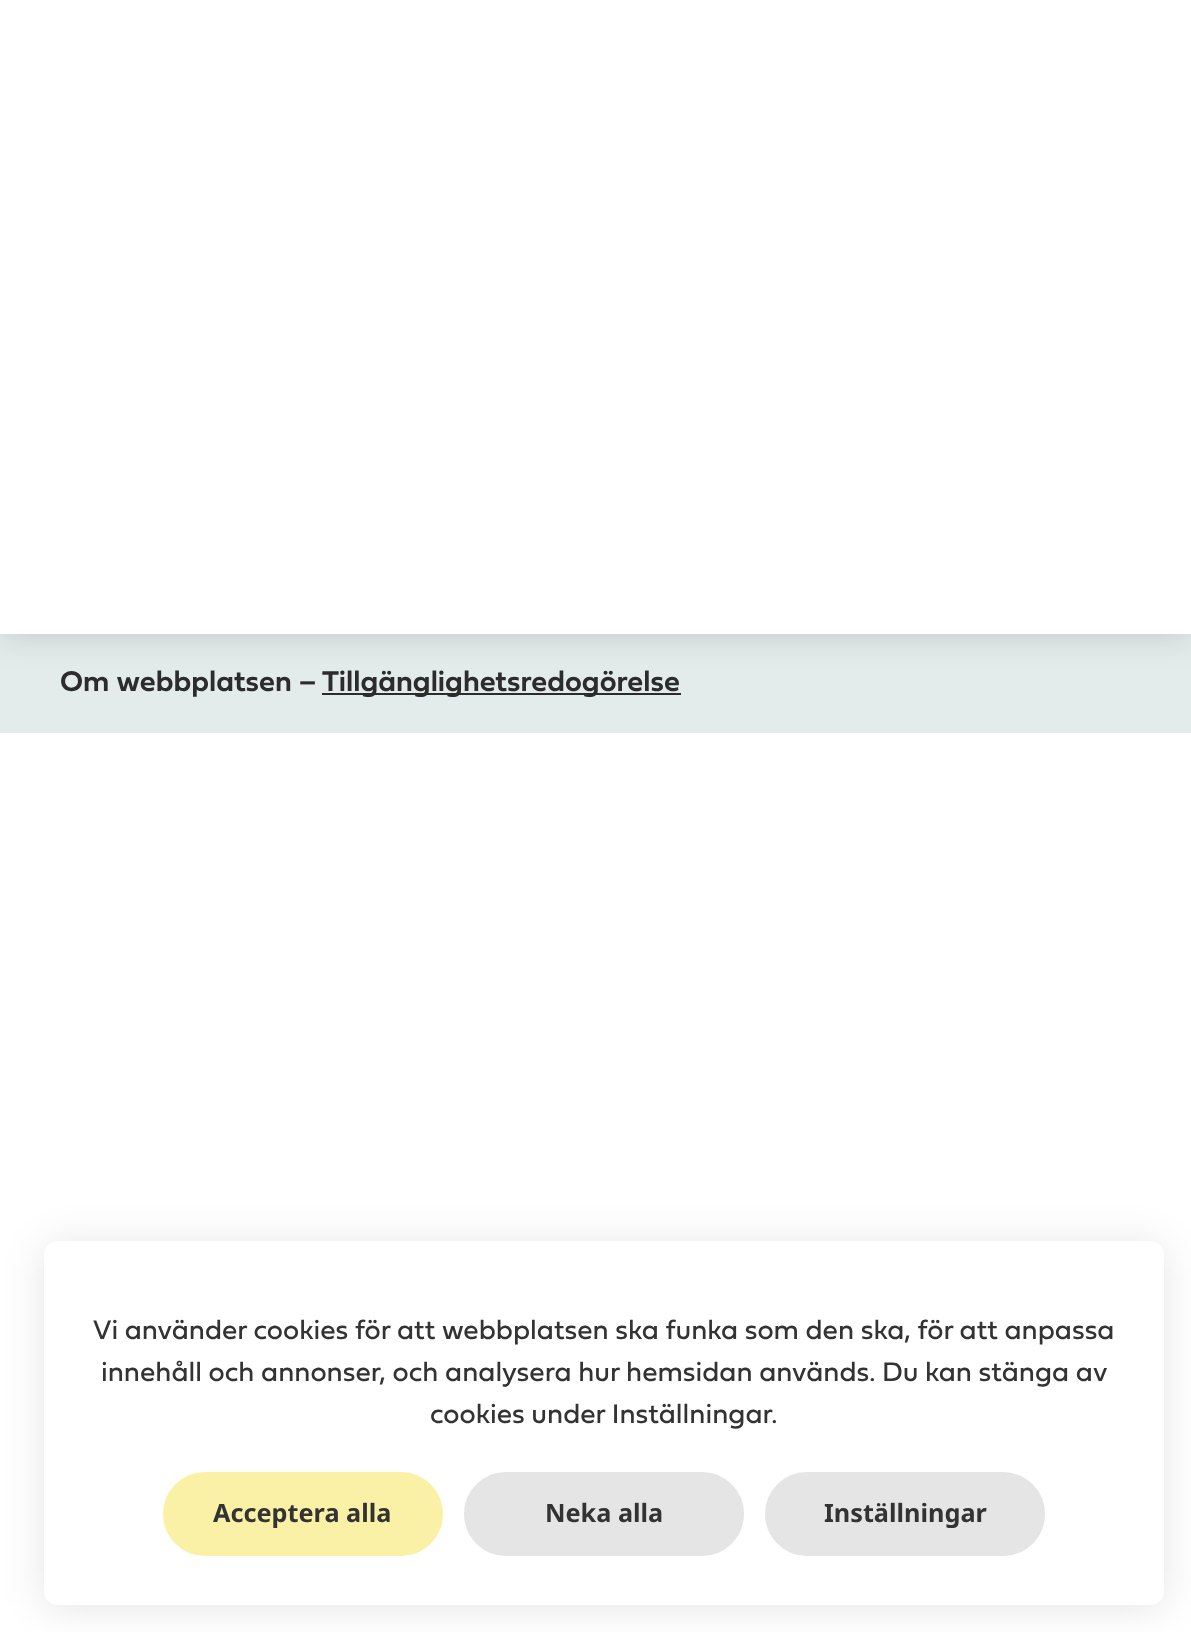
<svg xmlns="http://www.w3.org/2000/svg" width="1191" height="1632" viewBox="0 0 1191 1632">
  <defs>
    <clipPath id="clip1"><path d="M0 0H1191V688H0ZM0 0H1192V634H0Z" clip-rule="evenodd"/></clipPath>
    <filter id="blur1" x="-50%" y="-200%" width="200%" height="500%"><feGaussianBlur stdDeviation="17.5"/></filter>
    <filter id="blur2" x="-50%" y="-200%" width="200%" height="500%"><feGaussianBlur stdDeviation="21"/></filter>
  </defs>
  <rect width="100%" height="100%" fill="#ffffff"/>
  <rect x="0" y="634" width="1191" height="99" fill="#e4ebeb"/>
  <g clip-path="url(#clip1)">
    <rect x="0" y="0" width="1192" height="634" fill="#000000" fill-opacity="0.16" filter="url(#blur1)"/>
  </g>
  <text x="60" y="691" font-family="'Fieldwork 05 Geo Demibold'" font-size="29.75" font-weight="600" fill="#2c2c2c">Om webbplatsen –</text>
  <rect x="322" y="693" width="359" height="2" fill="#2c2c2c"/>
  <text x="322" y="691" font-family="'Fieldwork 05 Geo Demibold'" font-size="29.75" font-weight="600" fill="#2c2c2c">Tillgänglighetsredogörelse</text>
  <rect x="44" y="1244" width="1120" height="364" rx="14" fill="#000000" fill-opacity="0.1" filter="url(#blur2)"/>
  <rect x="44" y="1241" width="1120" height="364" rx="14" fill="#ffffff"/>
  <text x="93" y="1339" font-family="'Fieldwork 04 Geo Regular'" font-size="28" fill="#333333">Vi använder cookies för att webbplatsen ska funka som den ska, för att anpassa</text>
  <text x="101" y="1381" font-family="'Fieldwork 04 Geo Regular'" font-size="28" fill="#333333">innehåll och annonser, och analysera hur hemsidan används. Du kan stänga av</text>
  <text x="430" y="1423" font-family="'Fieldwork 04 Geo Regular'" font-size="28" fill="#333333">cookies under Inställningar.</text>
  <rect x="165" y="1474" width="276" height="80" rx="40" fill="#faf1a7" stroke="#faf1a7" stroke-width="4"/>
  <text x="213" y="1522" font-family="Noto Sans" font-size="25.25" font-weight="bold" fill="#333333">Acceptera alla</text>
  <rect x="466" y="1474" width="276" height="80" rx="40" fill="#e5e5e5" stroke="#e5e5e5" stroke-width="4"/>
  <text x="545" y="1522" font-family="Noto Sans" font-size="25.25" font-weight="bold" fill="#333333">Neka alla</text>
  <rect x="767" y="1474" width="276" height="80" rx="40" fill="#e5e5e5" stroke="#e5e5e5" stroke-width="4"/>
  <text x="824" y="1522" font-family="Noto Sans" font-size="25.25" font-weight="bold" fill="#333333">Inställningar</text>
</svg>
